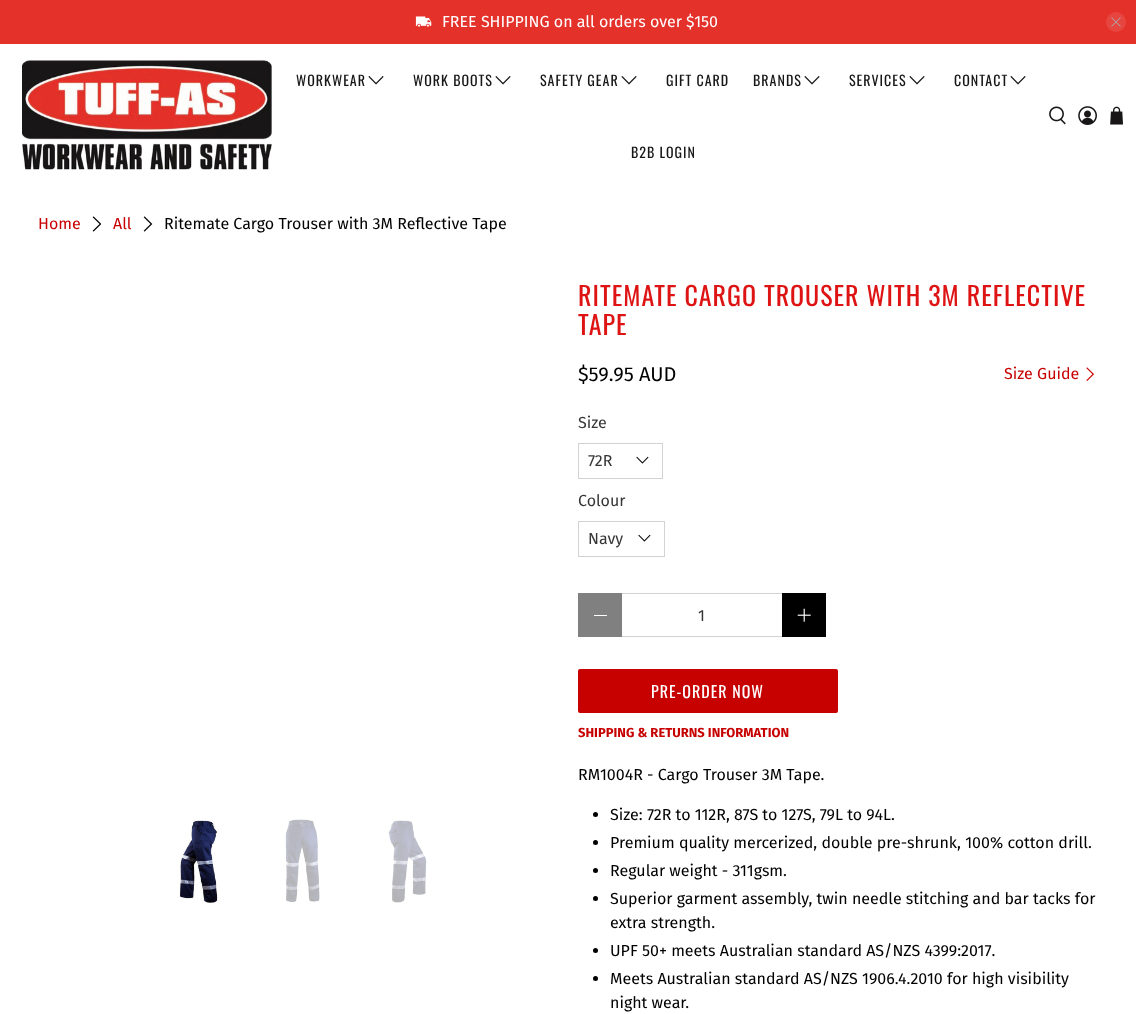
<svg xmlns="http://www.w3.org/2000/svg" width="1136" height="1014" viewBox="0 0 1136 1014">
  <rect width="100%" height="100%" fill="#ffffff"/>
  <rect x="0" y="0" width="1136" height="44" fill="#e4312a"/>
  <image x="415" y="16" width="17" height="11" href="img1.png"/>
  <text x="442" y="27" font-family="Fira Sans" font-size="16" fill="#ffffff">FREE SHIPPING on all orders over $150</text>
  <circle cx="1116" cy="22" r="10" fill="#e7453f"/>
  <image x="1111" y="17" width="10" height="10" href="img2.png"/>
  <image x="22" y="60" width="250" height="110" href="img3.png"/>
  <text x="296" y="86" font-family="Oswald" font-size="14" letter-spacing="1" fill="#181617">WORKWEAR</text>
  <image x="368" y="76" width="16" height="9" href="img4.png"/>
  <text x="413" y="86" font-family="Oswald" font-size="14" letter-spacing="1" fill="#181617">WORK BOOTS</text>
  <image x="495" y="76" width="16" height="9" href="img4.png"/>
  <text x="540" y="86" font-family="Oswald" font-size="14" letter-spacing="1" fill="#181617">SAFETY GEAR</text>
  <image x="621" y="76" width="16" height="9" href="img4.png"/>
  <text x="666" y="86" font-family="Oswald" font-size="14" letter-spacing="1" fill="#181617">GIFT CARD</text>
  <text x="753" y="86" font-family="Oswald" font-size="14" letter-spacing="1" fill="#181617">BRANDS</text>
  <image x="804" y="76" width="16" height="9" href="img4.png"/>
  <text x="849" y="86" font-family="Oswald" font-size="14" letter-spacing="1" fill="#181617">SERVICES</text>
  <image x="909" y="76" width="16" height="9" href="img4.png"/>
  <text x="954" y="86" font-family="Oswald" font-size="14" letter-spacing="1" fill="#181617">CONTACT</text>
  <image x="1010" y="76" width="16" height="9" href="img4.png"/>
  <text x="631" y="158" font-family="Oswald" font-size="14" letter-spacing="1" fill="#181617">B2B LOGIN</text>
  <image x="1049" y="106" width="17" height="19" href="img5.png"/>
  <image x="1078" y="106" width="19" height="19" href="img6.png"/>
  <image x="1110" y="106" width="13" height="19" href="img7.png"/>
  <text x="38" y="229" font-family="Fira Sans" font-size="16" fill="#c70000">Home</text>
  <image x="92" y="216" width="10" height="16" href="img8.png"/>
  <text x="113" y="229" font-family="Fira Sans" font-size="16" fill="#c70000">All</text>
  <image x="143" y="216" width="10" height="16" href="img8.png"/>
  <text x="164" y="229" font-family="Fira Sans" font-size="16" fill="#000000">Ritemate Cargo Trouser with 3M Reflective Tape</text>
  <image x="179" y="820" width="39" height="83" href="img9.png"/>
  <image x="285" y="819" width="35" height="84" href="img10.png"/>
  <image x="388" y="820" width="39" height="83" href="img11.png"/>
  <text x="578" y="306" font-family="Oswald" font-size="26" letter-spacing="1" fill="#de1313">RITEMATE CARGO TROUSER WITH 3M REFLECTIVE</text>
  <text x="578" y="335" font-family="Oswald" font-size="26" letter-spacing="1" fill="#de1313">TAPE</text>
  <text x="578" y="381" font-family="Fira Sans" font-size="20" fill="#000000">$59.95 AUD</text>
  <text x="1004" y="379" font-family="Fira Sans" font-size="16" fill="#c70000">Size Guide</text>
  <image x="1086" y="367" width="8" height="14" href="img12.png"/>
  <text x="578" y="428" font-family="Fira Sans" font-size="16" fill="#363636">Size</text>
  <rect x="578.5" y="443.5" width="84" height="35" fill="none" stroke="#d3d3d3"/>
  <text x="588" y="466" font-family="Fira Sans" font-size="16" fill="#363636">72R</text>
  <image x="636" y="456" width="13" height="8" href="img13.png"/>
  <text x="578" y="506" font-family="Fira Sans" font-size="16" fill="#363636">Colour</text>
  <rect x="578.5" y="521.5" width="86" height="35" fill="none" stroke="#d3d3d3"/>
  <text x="588" y="544" font-family="Fira Sans" font-size="16" fill="#363636">Navy</text>
  <image x="638" y="534" width="13" height="8" href="img13.png"/>
  <rect x="578" y="593" width="44" height="44" fill="#808080"/>
  <rect x="594" y="615" width="13" height="1" fill="#ffffff"/>
  <rect x="622" y="593" width="160" height="1" fill="#d3d3d3"/>
  <rect x="622" y="636" width="160" height="1" fill="#d3d3d3"/>
  <text x="698" y="621" font-family="Fira Sans" font-size="16" fill="#363636">1</text>
  <rect x="782" y="593" width="44" height="44" fill="#000000"/>
  <image x="797" y="608" width="14" height="14" href="img14.png"/>
  <rect x="578" y="669" width="260" height="44" rx="2" fill="#c70000"/>
  <text x="651" y="698" font-family="Oswald" font-size="16" letter-spacing="1" fill="#ffffff">PRE-ORDER NOW</text>
  <text x="578" y="737" font-family="Fira Sans" font-size="13" font-weight="bold" fill="#c70000">SHIPPING &amp; RETURNS INFORMATION</text>
  <text x="578" y="780" font-family="Fira Sans" font-size="16" fill="#000000">RM1004R - Cargo Trouser 3M Tape.</text>
  <circle cx="595.5" cy="814.5" r="2.5" fill="#000000"/>
  <text x="610" y="820" font-family="Fira Sans" font-size="16" fill="#000000">Size: 72R to 112R, 87S to 127S, 79L to 94L.</text>
  <circle cx="595.5" cy="842.5" r="2.5" fill="#000000"/>
  <text x="610" y="848" font-family="Fira Sans" font-size="16" fill="#000000">Premium quality mercerized, double pre-shrunk, 100% cotton drill.</text>
  <circle cx="595.5" cy="870.5" r="2.5" fill="#000000"/>
  <text x="610" y="876" font-family="Fira Sans" font-size="16" fill="#000000">Regular weight - 311gsm.</text>
  <circle cx="595.5" cy="898.5" r="2.5" fill="#000000"/>
  <text x="610" y="904" font-family="Fira Sans" font-size="16" fill="#000000">Superior garment assembly, twin needle stitching and bar tacks for</text>
  <text x="610" y="928" font-family="Fira Sans" font-size="16" fill="#000000">extra strength.</text>
  <circle cx="595.5" cy="950.5" r="2.5" fill="#000000"/>
  <text x="610" y="956" font-family="Fira Sans" font-size="16" fill="#000000">UPF 50+ meets Australian standard AS/NZS 4399:2017.</text>
  <circle cx="595.5" cy="978.5" r="2.5" fill="#000000"/>
  <text x="610" y="984" font-family="Fira Sans" font-size="16" fill="#000000">Meets Australian standard AS/NZS 1906.4.2010 for high visibility</text>
  <text x="610" y="1008" font-family="Fira Sans" font-size="16" fill="#000000">night wear.</text>
</svg>
